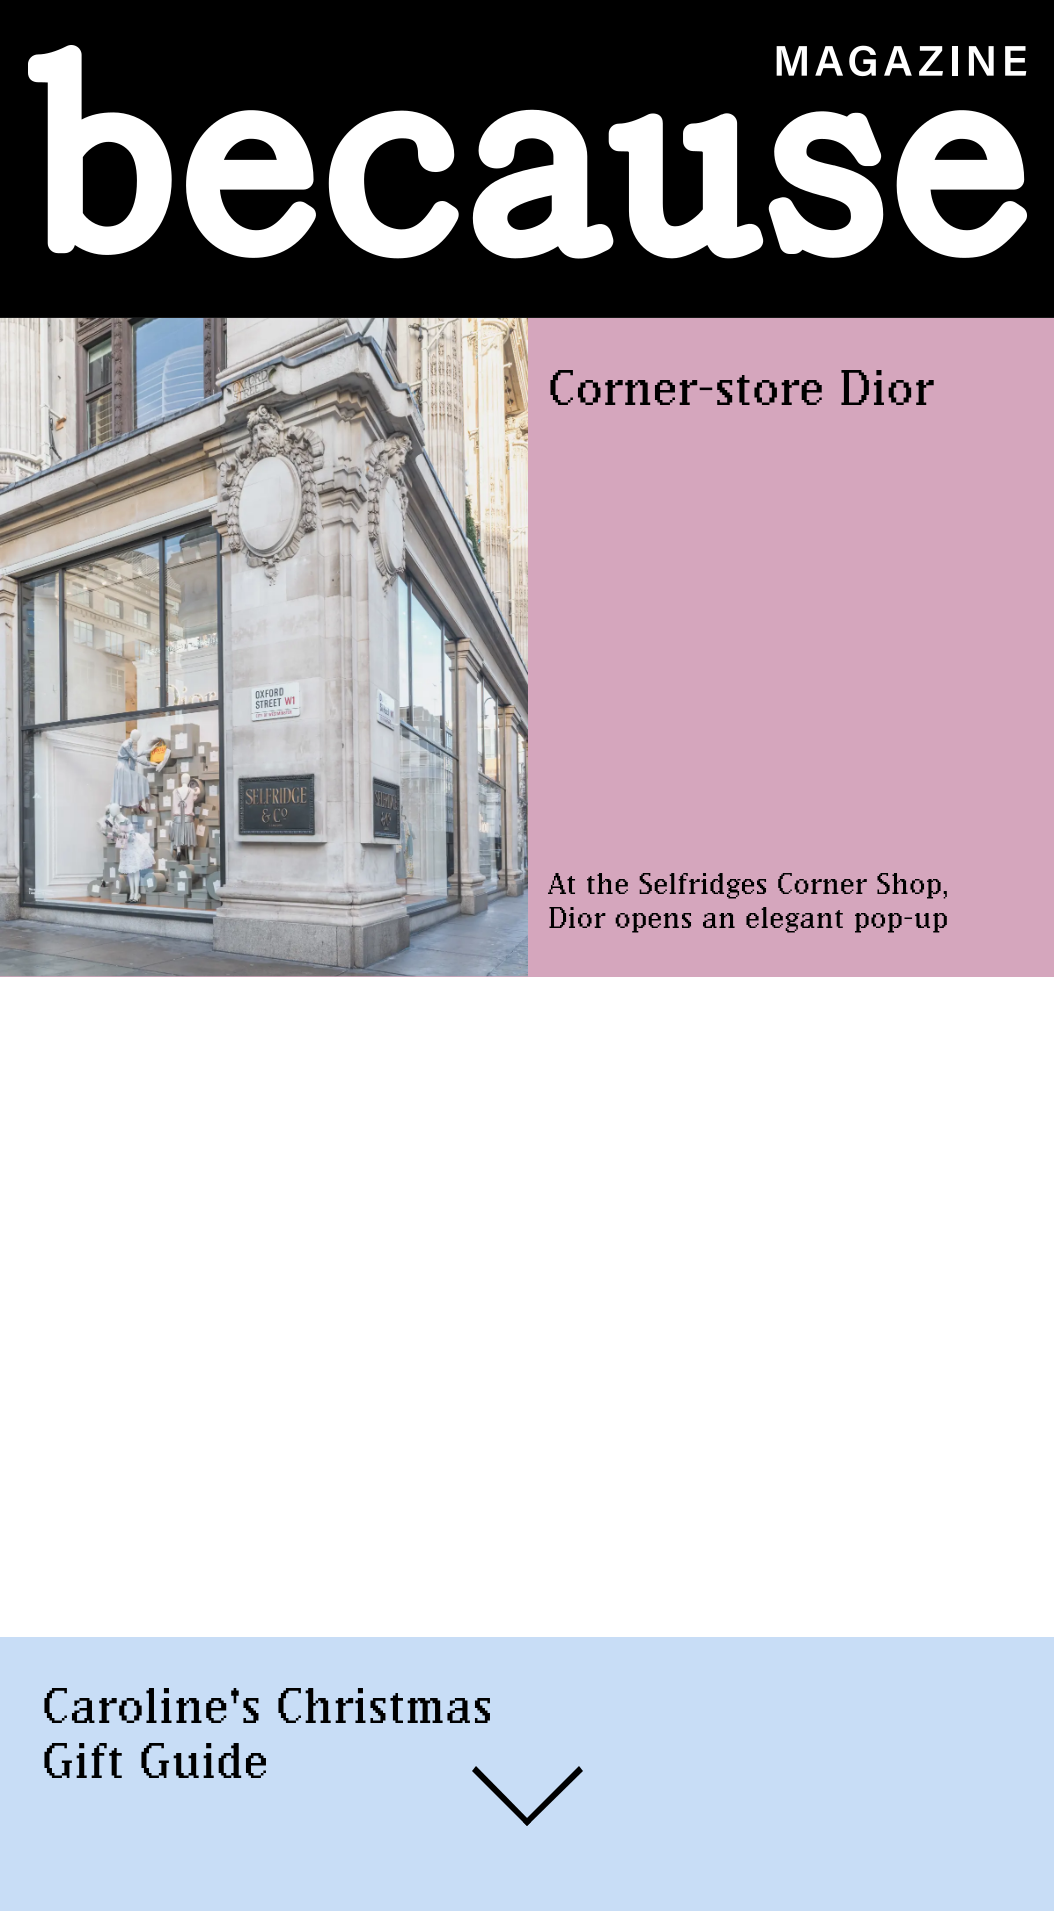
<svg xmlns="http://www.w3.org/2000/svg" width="1054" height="1911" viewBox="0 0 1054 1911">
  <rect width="100%" height="100%" fill="#ffffff"/>
  <rect x="0" y="317" width="1054" height="1" fill="#161616"/>
  <rect x="0" y="0" width="1054" height="317" fill="#000000"/>
  <image x="28" y="45" width="1000" height="214" href="img1.png"/>
  <rect x="0" y="318" width="1054" height="659" fill="#d5a6bd"/>
  <image x="0" y="318" width="528" height="659" href="img2.png"/>
  <text x="548" y="405" font-family="'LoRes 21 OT'" font-size="52.25" fill="#000000">Corner-store Dior</text>
  <text x="548" y="894" font-family="'LoRes 21 OT'" font-size="31.6" fill="#000000">At the Selfridges Corner Shop,</text>
  <text x="548" y="928" font-family="'LoRes 21 OT'" font-size="31.6" fill="#000000">Dior opens an elegant pop-up</text>
  <rect x="0" y="1637" width="1054" height="274" fill="#c8ddf6"/>
  <text x="42" y="1723" font-family="'LoRes 21 OT'" font-size="52.25" fill="#000000">Caroline's Christmas</text>
  <text x="42" y="1778" font-family="'LoRes 21 OT'" font-size="52.25" fill="#000000">Gift Guide</text>
  <path d="M579 1766L583 1771L527 1826L523 1822Z" fill="#000000"/>
  <path d="M476 1766L531 1822L527 1826L472 1771Z" fill="#000000"/>
</svg>
